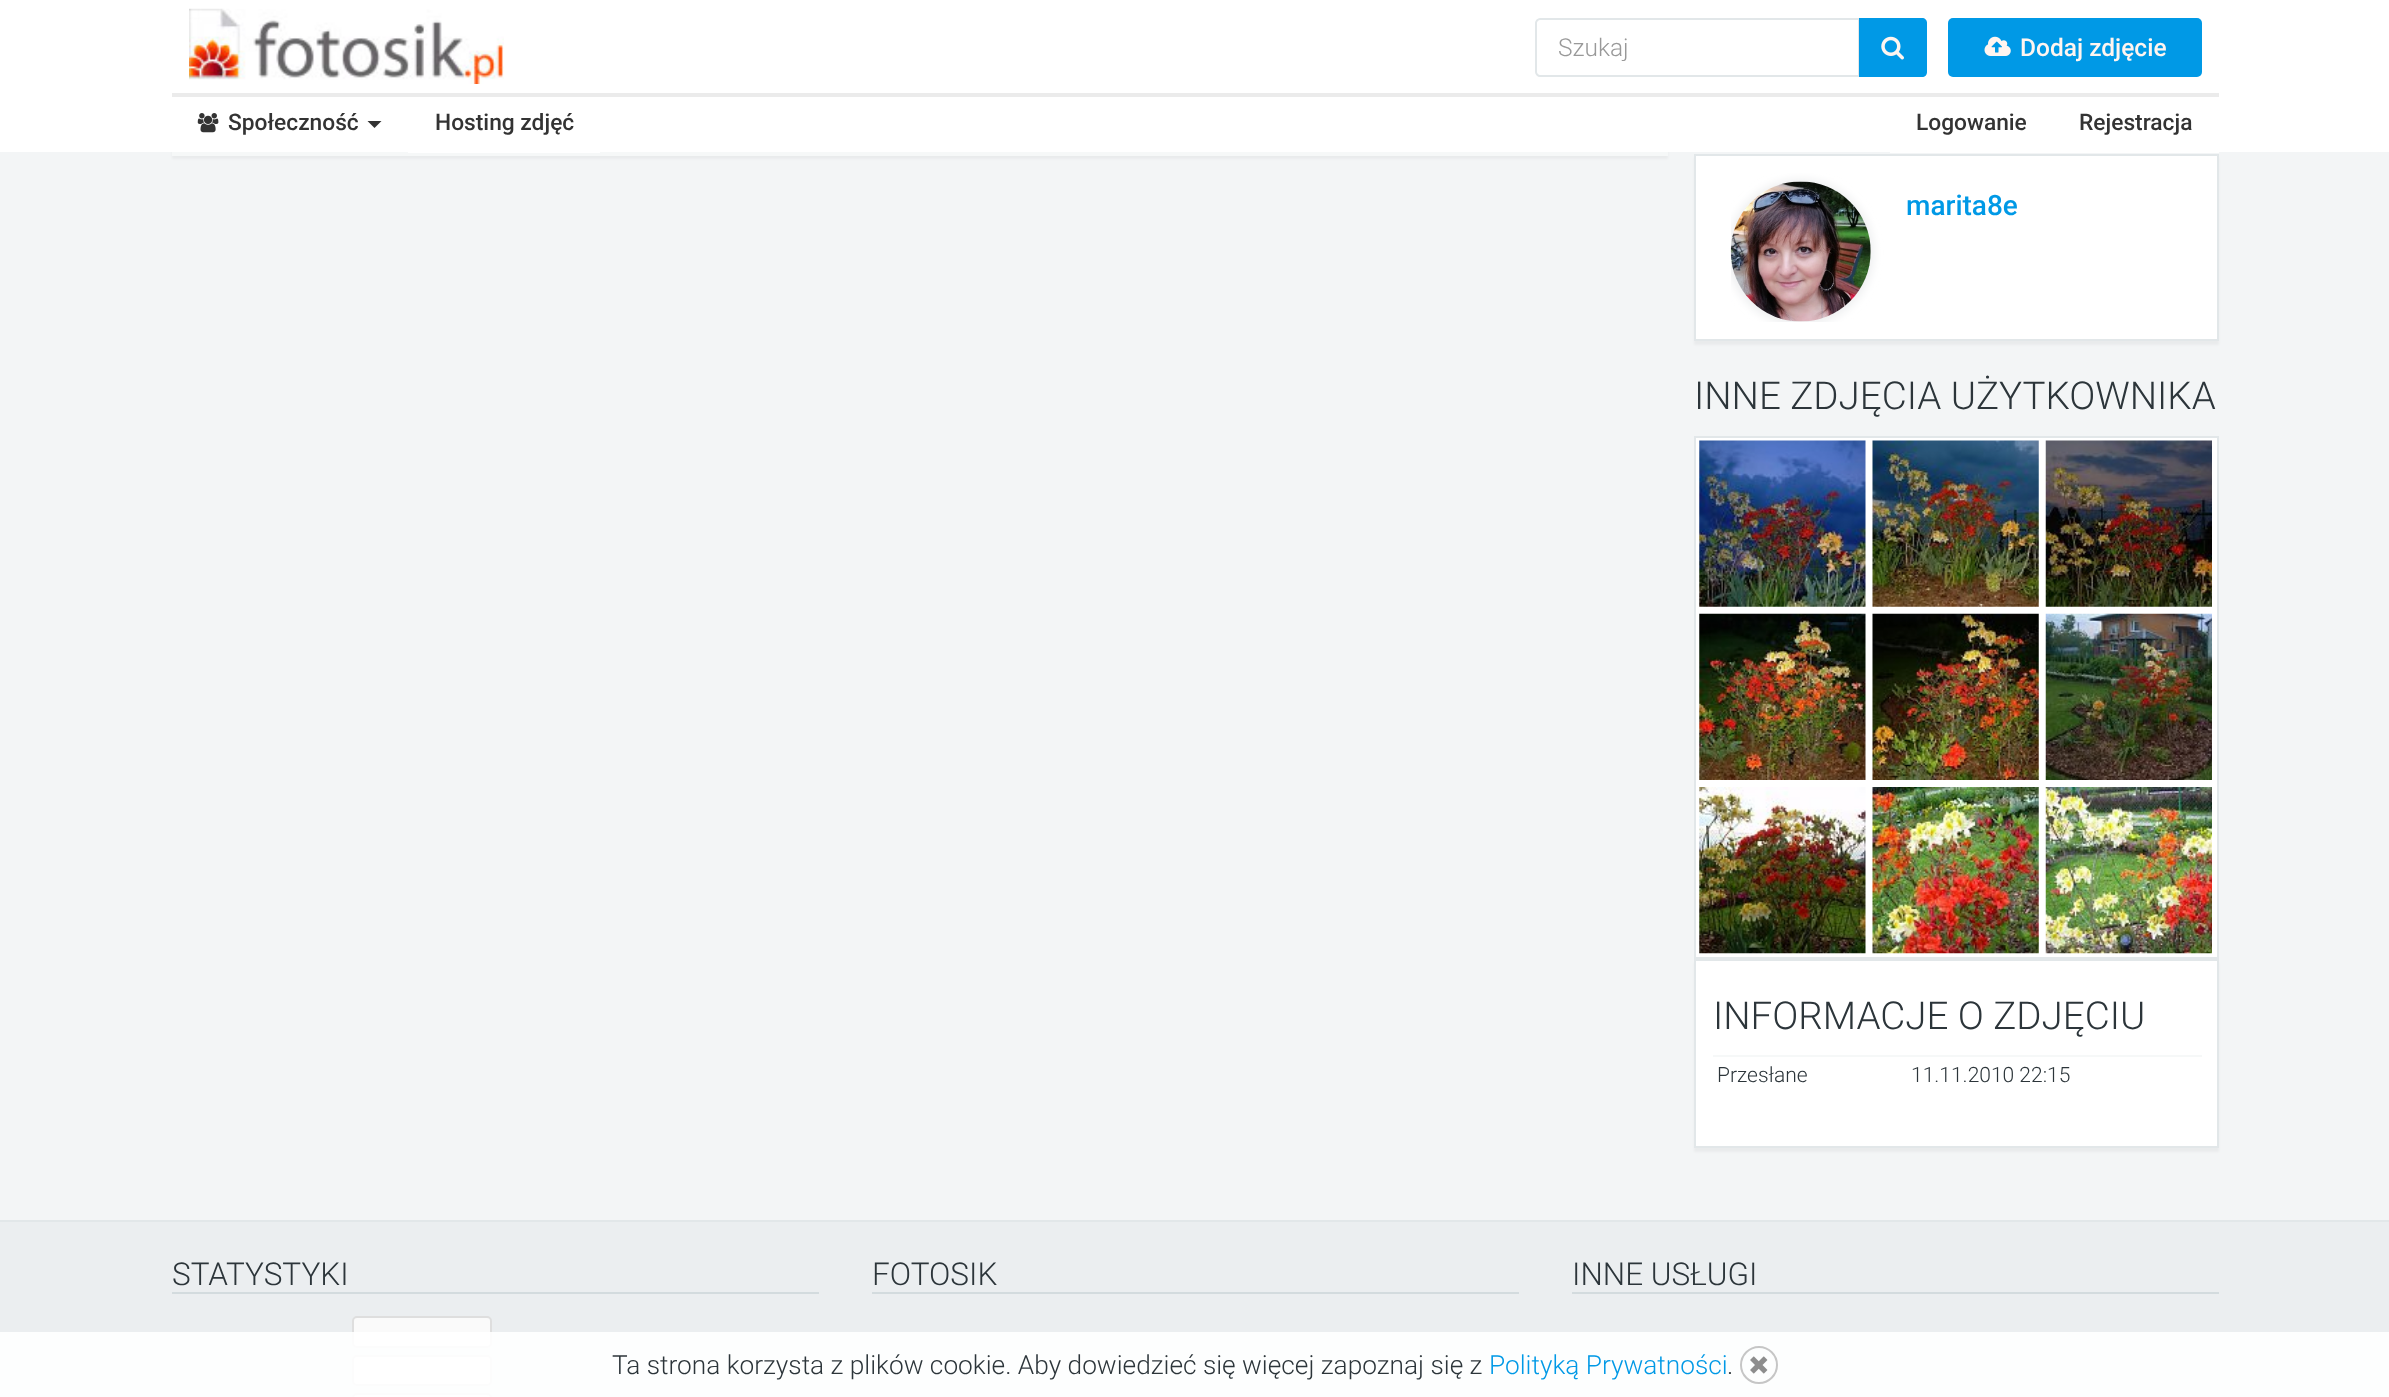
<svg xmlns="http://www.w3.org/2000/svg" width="2389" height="1397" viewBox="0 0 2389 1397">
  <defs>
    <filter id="blur1" x="-50%" y="-200%" width="200%" height="500%"><feGaussianBlur stdDeviation="1"/></filter>
    <clipPath id="clip1"><rect x="1558" y="33" width="280" height="28"/></clipPath>
    <clipPath id="clip2"><rect x="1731" y="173" width="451" height="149"/></clipPath>
    <filter id="blur2" x="-50%" y="-200%" width="200%" height="500%"><feGaussianBlur stdDeviation="4.5"/></filter>
  </defs>
  <rect width="100%" height="100%" fill="#f3f5f6"/>
  <rect x="172" y="-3" width="1496" height="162" fill="#e9ebec" filter="url(#blur1)"/>
  <rect x="0" y="0" width="2389" height="152" fill="#ffffff"/>
  <image x="189" y="8" width="315" height="76" href="img1.png"/>
  <path d="M1540 19H1859V76H1540C1538 76 1536 74 1536 72V23C1536 21 1538 19 1540 19Z" fill="none" stroke="#e2e7e9" stroke-width="2"/>
  <g clip-path="url(#clip1)">
    <text x="1558" y="56" font-family="Roboto" font-size="24.5" font-weight="300" fill="#999999">Szukaj</text>
  </g>
  <path d="M1859 18H1922C1925 18 1927 20 1927 23V72C1927 75 1925 77 1922 77H1859Z" fill="#0099e6"/>
  <image x="1881" y="36" width="23" height="24" href="img2.png"/>
  <rect x="1948" y="18" width="254" height="59" rx="5" fill="#0099e6"/>
  <image x="1984" y="36" width="27" height="20" href="img3.png"/>
  <text x="2020" y="56" font-family="Roboto" font-size="24.5" font-weight="500" fill="#fff5f0">Dodaj zdjęcie</text>
  <rect x="172" y="93" width="2047" height="4" fill="#ebebeb"/>
  <image x="197" y="113" width="22" height="20" href="img4.png"/>
  <text x="228" y="130" font-family="Roboto" font-size="22.75" font-weight="500" fill="#333333">Społeczność</text>
  <path d="M367.5 121H381.5L374.5 128Z" fill="#333333"/>
  <rect x="172" y="152" width="1496" height="4" fill="#f6f8f8"/>
  <rect x="408" y="152" width="192" height="1" fill="#ffffff"/>
  <text x="435" y="130" font-family="Roboto" font-size="22.75" font-weight="500" fill="#333333">Hosting zdjęć</text>
  <rect x="1890" y="152" width="329" height="1" fill="#ffffff"/>
  <text x="1916" y="130" font-family="Roboto" font-size="22.75" font-weight="500" fill="#333333">Logowanie</text>
  <text x="2079" y="130" font-family="Roboto" font-size="22.75" font-weight="500" fill="#333333">Rejestracja</text>
  <rect x="1694" y="158" width="525" height="187" fill="#e9ebec" filter="url(#blur1)"/>
  <rect x="1695" y="155" width="523" height="185" fill="#ffffff" stroke="#e2e7e9" stroke-width="2"/>
  <g clip-path="url(#clip2)">
    <rect x="1727" y="179" width="147" height="147" rx="73.5" fill="#eff0f1" filter="url(#blur2)"/>
  </g>
  <image x="1730" y="181" width="141" height="141" href="img5.png"/>
  <text x="1906" y="215" font-family="Roboto" font-size="28" font-weight="500" fill="#0099e6">marita8e</text>
  <text x="1694" y="409" font-family="Roboto" font-size="38.5" font-weight="300" fill="#2c353a">INNE ZDJĘCIA UŻYTKOWNIKA</text>
  <rect x="1695" y="437" width="523" height="521" fill="#ffffff" stroke="#e2e7e9" stroke-width="2"/>
  <image x="1699" y="440" width="167" height="167" href="img6.png"/>
  <image x="1872" y="440" width="167" height="167" href="img7.png"/>
  <image x="2045" y="440" width="167" height="167" href="img8.png"/>
  <image x="1699" y="613" width="167" height="167" href="img9.png"/>
  <image x="1872" y="613" width="167" height="167" href="img10.png"/>
  <image x="2045" y="613" width="167" height="167" href="img11.png"/>
  <image x="1699" y="787" width="167" height="167" href="img12.png"/>
  <image x="1872" y="787" width="167" height="167" href="img13.png"/>
  <image x="2045" y="787" width="167" height="167" href="img14.png"/>
  <rect x="1694" y="963" width="525" height="189" fill="#e9ebec" filter="url(#blur1)"/>
  <rect x="1695" y="960" width="523" height="187" fill="#ffffff" stroke="#e2e7e9" stroke-width="2"/>
  <text x="1713" y="1029" font-family="Roboto" font-size="38.5" font-weight="300" fill="#2c353a">INFORMACJE O ZDJĘCIU</text>
  <text x="1717" y="1082" font-family="Roboto" font-size="21" font-weight="300" fill="#2c353a">Przesłane</text>
  <rect x="1713" y="1055" width="489" height="2" fill="#f6f8f8"/>
  <text x="1911" y="1082" font-family="Roboto" font-size="21" font-weight="300" fill="#2c353a">11.11.2010 22:15</text>
  <rect x="0" y="1222" width="2389" height="175" fill="#ebeef0"/>
  <rect x="0" y="1220" width="2389" height="2" fill="#e2e7e9"/>
  <rect x="172" y="1292" width="647" height="2" fill="#d3dbde"/>
  <text x="172" y="1285" font-family="Roboto" font-size="31.5" font-weight="300" fill="#2c353a">STATYSTYKI</text>
  <rect x="353" y="1317" width="138" height="30" rx="4" fill="#fafafa" stroke="#dedede" stroke-width="2"/>
  <rect x="353" y="1356" width="138" height="29" rx="4" fill="#fafafa" stroke="#dedede" stroke-width="2"/>
  <rect x="353" y="1394" width="138" height="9" rx="4" fill="#fafafa" stroke="#dedede" stroke-width="2"/>
  <rect x="872" y="1292" width="647" height="2" fill="#d3dbde"/>
  <text x="872" y="1285" font-family="Roboto" font-size="31.5" font-weight="300" fill="#2c353a">FOTOSIK</text>
  <rect x="1572" y="1292" width="647" height="2" fill="#d3dbde"/>
  <text x="1572" y="1285" font-family="Roboto" font-size="31.5" font-weight="300" fill="#2c353a">INNE USŁUGI</text>
  <rect x="0" y="1332" width="2389" height="65" fill="#ffffff" fill-opacity="0.9"/>
  <text x="612" y="1374" font-family="Roboto" font-size="26.25" font-weight="300" fill="#2c353a">Ta strona korzysta z plików cookie. Aby dowiedzieć się więcej zapoznaj się z</text>
  <text x="1489" y="1374" font-family="Roboto" font-size="26.25" font-weight="300" fill="#0099e6">Polityką Prywatności</text>
  <text x="1727" y="1374" font-family="Roboto" font-size="26.25" font-weight="300" fill="#2c353a">.</text>
  <circle cx="1759" cy="1365" r="18" fill="none" stroke="#c6c6c6" stroke-width="2"/>
  <image x="1750" y="1356" width="18" height="18" href="img15.png"/>
</svg>
